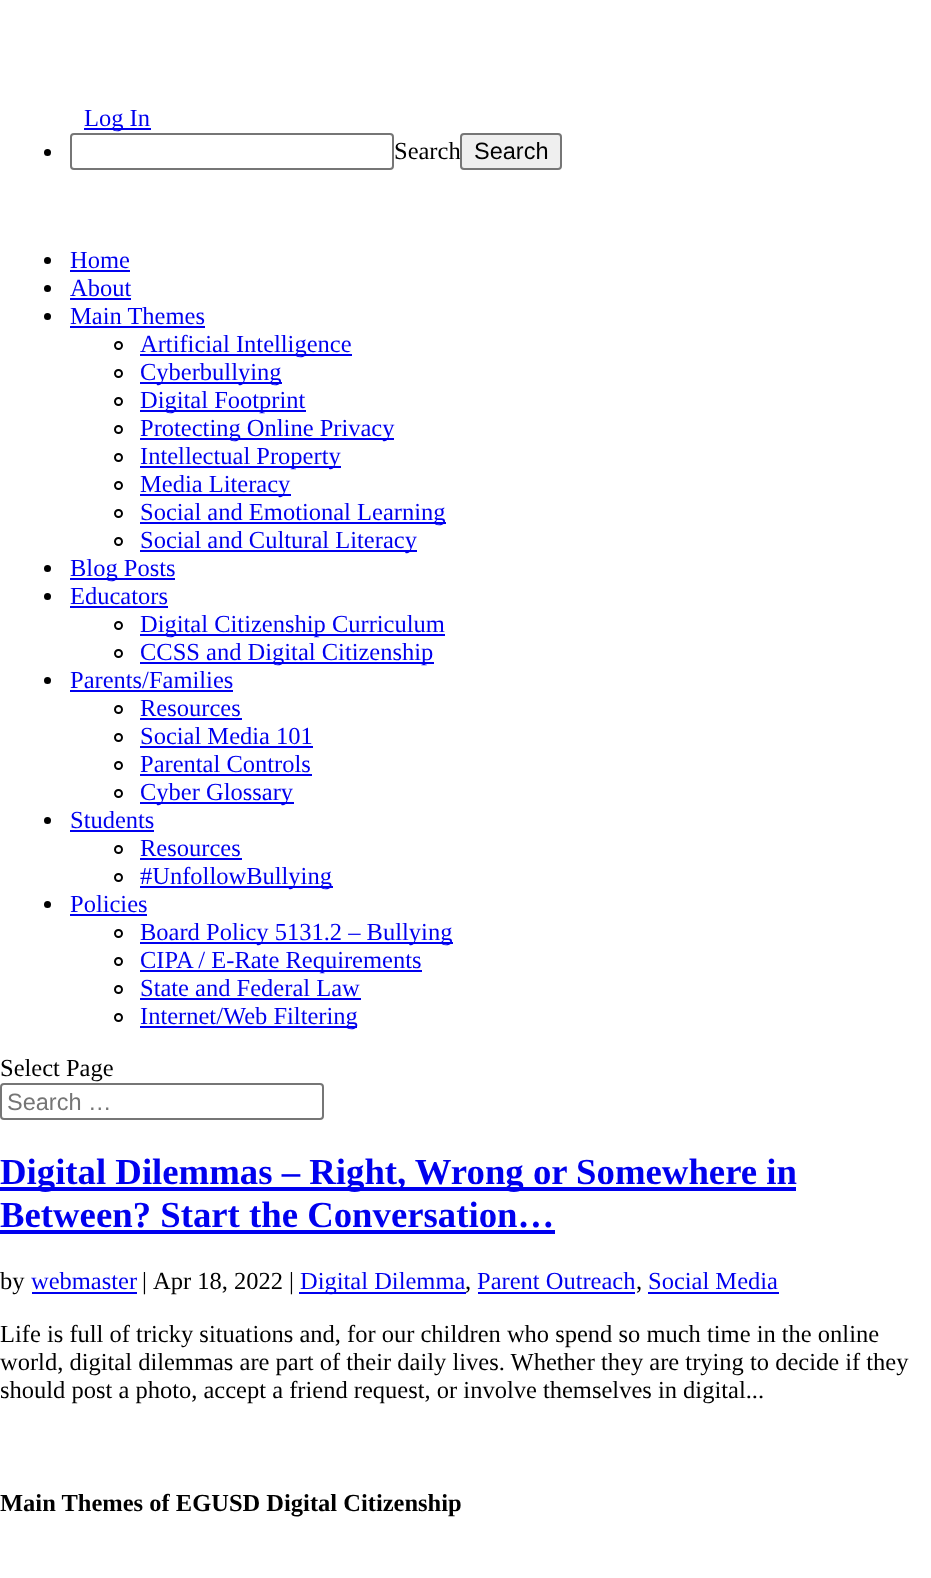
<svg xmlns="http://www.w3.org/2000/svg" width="931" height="1578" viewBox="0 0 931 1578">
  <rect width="100%" height="100%" fill="#ffffff"/>
  <rect x="84" y="128" width="67" height="2" fill="#0000ee"/>
  <text x="84" y="126" font-family="Liberation Serif" font-size="24.5" fill="#0000ee">Log In</text>
  <circle cx="47.5" cy="152.5" r="3.5" fill="#000000"/>
  <rect x="71" y="134" width="322" height="35" rx="3" fill="none" stroke="#767676" stroke-width="2"/>
  <text x="394" y="159" font-family="Liberation Serif" font-size="24.5" fill="#000000">Search</text>
  <rect x="461" y="134" width="100" height="35" rx="3" fill="#efefef" stroke="#767676" stroke-width="2"/>
  <text x="474" y="159" font-family="Liberation Sans" font-size="23.5" fill="#000000">Search</text>
  <circle cx="47.5" cy="260.5" r="3.5" fill="#000000"/>
  <text x="70" y="268" font-family="Liberation Serif" font-size="24.5" fill="#0000ee">Home</text>
  <rect x="70" y="270" width="60" height="2" fill="#0000ee"/>
  <circle cx="47.5" cy="288.5" r="3.5" fill="#000000"/>
  <text x="70" y="296" font-family="Liberation Serif" font-size="24.5" fill="#0000ee">About</text>
  <rect x="70" y="298" width="61" height="2" fill="#0000ee"/>
  <circle cx="47.5" cy="316.5" r="3.5" fill="#000000"/>
  <text x="70" y="324" font-family="Liberation Serif" font-size="24.5" fill="#0000ee">Main Themes</text>
  <rect x="70" y="326" width="135" height="2" fill="#0000ee"/>
  <circle cx="118.5" cy="345.5" r="3.5" fill="none" stroke="#000000" stroke-width="2"/>
  <rect x="140" y="354" width="212" height="2" fill="#0000ee"/>
  <text x="140" y="352" font-family="Liberation Serif" font-size="24.5" fill="#0000ee">Artificial Intelligence</text>
  <circle cx="118.5" cy="373.5" r="3.5" fill="none" stroke="#000000" stroke-width="2"/>
  <rect x="140" y="382" width="142" height="2" fill="#0000ee"/>
  <text x="140" y="380" font-family="Liberation Serif" font-size="24.5" fill="#0000ee">Cyberbullying</text>
  <circle cx="118.5" cy="401.5" r="3.5" fill="none" stroke="#000000" stroke-width="2"/>
  <rect x="140" y="410" width="166" height="2" fill="#0000ee"/>
  <text x="140" y="408" font-family="Liberation Serif" font-size="24.5" fill="#0000ee">Digital Footprint</text>
  <circle cx="118.5" cy="429.5" r="3.5" fill="none" stroke="#000000" stroke-width="2"/>
  <rect x="140" y="438" width="254" height="2" fill="#0000ee"/>
  <text x="140" y="436" font-family="Liberation Serif" font-size="24.5" fill="#0000ee">Protecting Online Privacy</text>
  <circle cx="118.5" cy="457.5" r="3.5" fill="none" stroke="#000000" stroke-width="2"/>
  <rect x="140" y="466" width="201" height="2" fill="#0000ee"/>
  <text x="140" y="464" font-family="Liberation Serif" font-size="24.5" fill="#0000ee">Intellectual Property</text>
  <circle cx="118.5" cy="485.5" r="3.5" fill="none" stroke="#000000" stroke-width="2"/>
  <rect x="140" y="494" width="151" height="2" fill="#0000ee"/>
  <text x="140" y="492" font-family="Liberation Serif" font-size="24.5" fill="#0000ee">Media Literacy</text>
  <circle cx="118.5" cy="513.5" r="3.5" fill="none" stroke="#000000" stroke-width="2"/>
  <rect x="140" y="522" width="306" height="2" fill="#0000ee"/>
  <text x="140" y="520" font-family="Liberation Serif" font-size="24.5" fill="#0000ee">Social and Emotional Learning</text>
  <circle cx="118.5" cy="541.5" r="3.5" fill="none" stroke="#000000" stroke-width="2"/>
  <rect x="140" y="550" width="277" height="2" fill="#0000ee"/>
  <text x="140" y="548" font-family="Liberation Serif" font-size="24.5" fill="#0000ee">Social and Cultural Literacy</text>
  <circle cx="47.5" cy="568.5" r="3.5" fill="#000000"/>
  <rect x="70" y="578" width="105" height="2" fill="#0000ee"/>
  <text x="70" y="576" font-family="Liberation Serif" font-size="24.5" fill="#0000ee">Blog Posts</text>
  <circle cx="47.5" cy="596.5" r="3.5" fill="#000000"/>
  <text x="70" y="604" font-family="Liberation Serif" font-size="24.5" fill="#0000ee">Educators</text>
  <rect x="70" y="606" width="98" height="2" fill="#0000ee"/>
  <circle cx="118.5" cy="625.5" r="3.5" fill="none" stroke="#000000" stroke-width="2"/>
  <rect x="140" y="634" width="305" height="2" fill="#0000ee"/>
  <text x="140" y="632" font-family="Liberation Serif" font-size="24.5" fill="#0000ee">Digital Citizenship Curriculum</text>
  <circle cx="118.5" cy="653.5" r="3.5" fill="none" stroke="#000000" stroke-width="2"/>
  <rect x="140" y="662" width="294" height="2" fill="#0000ee"/>
  <text x="140" y="660" font-family="Liberation Serif" font-size="24.5" fill="#0000ee">CCSS and Digital Citizenship</text>
  <circle cx="47.5" cy="680.5" r="3.5" fill="#000000"/>
  <text x="70" y="688" font-family="Liberation Serif" font-size="24.5" fill="#0000ee">Parents/Families</text>
  <rect x="70" y="690" width="163" height="2" fill="#0000ee"/>
  <circle cx="118.5" cy="709.5" r="3.5" fill="none" stroke="#000000" stroke-width="2"/>
  <text x="140" y="716" font-family="Liberation Serif" font-size="24.5" fill="#0000ee">Resources</text>
  <rect x="140" y="718" width="102" height="2" fill="#0000ee"/>
  <circle cx="118.5" cy="737.5" r="3.5" fill="none" stroke="#000000" stroke-width="2"/>
  <text x="140" y="744" font-family="Liberation Serif" font-size="24.5" fill="#0000ee">Social Media 101</text>
  <rect x="140" y="746" width="173" height="2" fill="#0000ee"/>
  <circle cx="118.5" cy="765.5" r="3.5" fill="none" stroke="#000000" stroke-width="2"/>
  <text x="140" y="772" font-family="Liberation Serif" font-size="24.5" fill="#0000ee">Parental Controls</text>
  <rect x="140" y="774" width="172" height="2" fill="#0000ee"/>
  <circle cx="118.5" cy="793.5" r="3.5" fill="none" stroke="#000000" stroke-width="2"/>
  <rect x="140" y="802" width="154" height="2" fill="#0000ee"/>
  <text x="140" y="800" font-family="Liberation Serif" font-size="24.5" fill="#0000ee">Cyber Glossary</text>
  <circle cx="47.5" cy="820.5" r="3.5" fill="#000000"/>
  <text x="70" y="828" font-family="Liberation Serif" font-size="24.5" fill="#0000ee">Students</text>
  <rect x="70" y="830" width="84" height="2" fill="#0000ee"/>
  <circle cx="118.5" cy="849.5" r="3.5" fill="none" stroke="#000000" stroke-width="2"/>
  <text x="140" y="856" font-family="Liberation Serif" font-size="24.5" fill="#0000ee">Resources</text>
  <rect x="140" y="858" width="102" height="2" fill="#0000ee"/>
  <circle cx="118.5" cy="877.5" r="3.5" fill="none" stroke="#000000" stroke-width="2"/>
  <rect x="140" y="886" width="193" height="2" fill="#0000ee"/>
  <text x="140" y="884" font-family="Liberation Serif" font-size="24.5" fill="#0000ee">#UnfollowBullying</text>
  <circle cx="47.5" cy="904.5" r="3.5" fill="#000000"/>
  <text x="70" y="912" font-family="Liberation Serif" font-size="24.5" fill="#0000ee">Policies</text>
  <rect x="70" y="914" width="77" height="2" fill="#0000ee"/>
  <circle cx="118.5" cy="933.5" r="3.5" fill="none" stroke="#000000" stroke-width="2"/>
  <rect x="140" y="942" width="313" height="2" fill="#0000ee"/>
  <text x="140" y="940" font-family="Liberation Serif" font-size="24.5" fill="#0000ee">Board Policy 5131.2 – Bullying</text>
  <circle cx="118.5" cy="961.5" r="3.5" fill="none" stroke="#000000" stroke-width="2"/>
  <rect x="140" y="970" width="282" height="2" fill="#0000ee"/>
  <text x="140" y="968" font-family="Liberation Serif" font-size="24.5" fill="#0000ee">CIPA / E-Rate Requirements</text>
  <circle cx="118.5" cy="989.5" r="3.5" fill="none" stroke="#000000" stroke-width="2"/>
  <text x="140" y="996" font-family="Liberation Serif" font-size="24.5" fill="#0000ee">State and Federal Law</text>
  <rect x="140" y="998" width="221" height="2" fill="#0000ee"/>
  <circle cx="118.5" cy="1017.5" r="3.5" fill="none" stroke="#000000" stroke-width="2"/>
  <rect x="140" y="1026" width="217" height="2" fill="#0000ee"/>
  <text x="140" y="1024" font-family="Liberation Serif" font-size="24.5" fill="#0000ee">Internet/Web Filtering</text>
  <text x="0" y="1076" font-family="Liberation Serif" font-size="24.5" fill="#000000">Select Page</text>
  <rect x="1" y="1084" width="322" height="35" rx="3" fill="none" stroke="#767676" stroke-width="2"/>
  <text x="7" y="1110" font-family="Liberation Sans" font-size="23.5" fill="#757575">Search …</text>
  <rect x="0" y="1187" width="796" height="4" fill="#0000ee"/>
  <text x="0" y="1184" font-family="Liberation Serif" font-size="36.75" font-weight="bold" fill="#0000ee">Digital Dilemmas – Right, Wrong or Somewhere in</text>
  <text x="0" y="1227" font-family="Liberation Serif" font-size="36.75" font-weight="bold" fill="#0000ee">Between? Start the Conversation…</text>
  <rect x="0" y="1230" width="555" height="4" fill="#0000ee"/>
  <text x="0" y="1289" font-family="Liberation Serif" font-size="24.5" fill="#000000">by</text>
  <text x="31" y="1289" font-family="Liberation Serif" font-size="24.5" fill="#0000ee">webmaster</text>
  <rect x="32" y="1292" width="105" height="2" fill="#0000ee"/>
  <text x="142" y="1289" font-family="Liberation Serif" font-size="24.5" fill="#000000">|</text>
  <text x="153" y="1289" font-family="Liberation Serif" font-size="24.5" fill="#000000">Apr 18, 2022 |</text>
  <rect x="299" y="1292" width="167" height="2" fill="#0000ee"/>
  <text x="300" y="1289" font-family="Liberation Serif" font-size="24.5" fill="#0000ee">Digital Dilemma</text>
  <text x="465" y="1289" font-family="Liberation Serif" font-size="24.5" fill="#000000">,</text>
  <text x="477" y="1289" font-family="Liberation Serif" font-size="24.5" fill="#0000ee">Parent Outreach</text>
  <rect x="478" y="1292" width="157" height="2" fill="#0000ee"/>
  <text x="636" y="1289" font-family="Liberation Serif" font-size="24.5" fill="#000000">,</text>
  <text x="648" y="1289" font-family="Liberation Serif" font-size="24.5" fill="#0000ee">Social Media</text>
  <rect x="648" y="1292" width="131" height="2" fill="#0000ee"/>
  <text x="0" y="1342" font-family="Liberation Serif" font-size="24.5" fill="#000000">Life is full of tricky situations and, for our children who spend so much time in the online</text>
  <text x="0" y="1370" font-family="Liberation Serif" font-size="24.5" fill="#000000">world, digital dilemmas are part of their daily lives. Whether they are trying to decide if they</text>
  <text x="0" y="1398" font-family="Liberation Serif" font-size="24.5" fill="#000000">should post a photo, accept a friend request, or involve themselves in digital...</text>
  <text x="0" y="1511" font-family="Liberation Serif" font-size="24.5" font-weight="bold" fill="#000000">Main Themes of EGUSD Digital Citizenship</text>
</svg>
